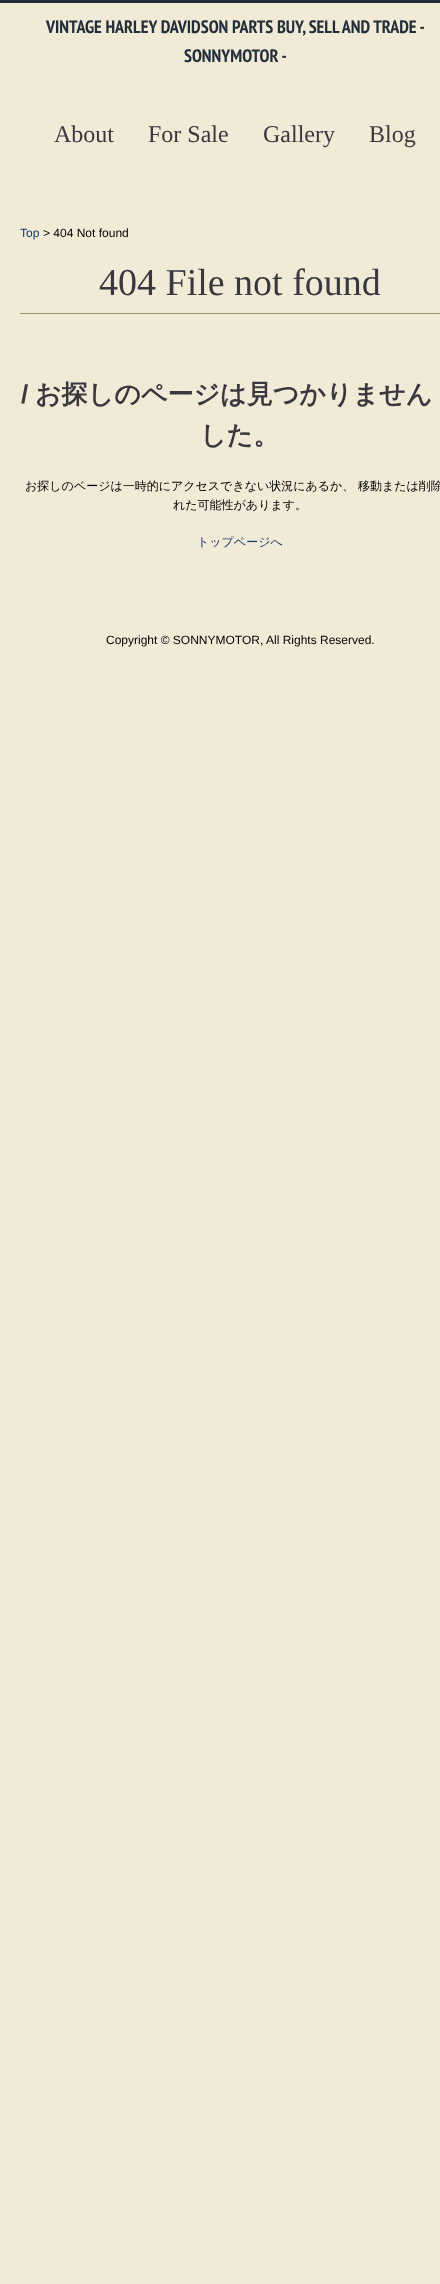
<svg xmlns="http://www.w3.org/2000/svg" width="440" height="2284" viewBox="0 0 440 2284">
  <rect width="100%" height="100%" fill="#f1ead7"/>
  <rect x="0" y="0" width="440" height="3" fill="#222f3b"/>
  <text x="46" y="33" font-family="PT Sans Narrow" font-size="18" font-weight="bold" fill="#222f3b">VINTAGE HARLEY DAVIDSON PARTS BUY, SELL AND TRADE -</text>
  <text x="184" y="62" font-family="PT Sans Narrow" font-size="18" font-weight="bold" fill="#222f3b">SONNYMOTOR -</text>
  <text x="54" y="142" font-family="Liberation Serif" font-size="24" fill="#39383e">About</text>
  <text x="148" y="142" font-family="Liberation Serif" font-size="24" fill="#39383e">For Sale</text>
  <text x="263" y="142" font-family="Liberation Serif" font-size="24" fill="#39383e">Gallery</text>
  <text x="369" y="142" font-family="Liberation Serif" font-size="24" fill="#39383e">Blog</text>
  <text x="20" y="237" font-family="Liberation Sans" font-size="12" fill="#16376d">Top</text>
  <text x="43" y="237" font-family="Liberation Sans" font-size="12" fill="#000000">&gt; 404 Not found</text>
  <rect x="20" y="313" width="420" height="1" fill="#9c9370"/>
  <text x="99" y="295" font-family="Liberation Serif" font-size="38" fill="#39383e">404 File not found</text>
  <text x="21" y="403" font-family="Liberation Sans" font-size="26" font-weight="bold" fill="#39383e">/</text>
  <text x="35" y="403" font-family="WenQuanYi Zen Hei" font-size="26" font-weight="bold" fill="#39383e">お探しのページは見つかりません</text>
  <text x="200" y="444" font-family="WenQuanYi Zen Hei" font-size="26" font-weight="bold" fill="#39383e">した。</text>
  <text x="25" y="490" font-family="WenQuanYi Zen Hei" font-size="12" font-weight="500" fill="#000000">お探しのページは一時的にアクセスできない状況にあるか、 移動または削除</text>
  <text x="173" y="509" font-family="WenQuanYi Zen Hei" font-size="12" font-weight="500" fill="#000000">れた可能性があります。</text>
  <text x="197" y="546" font-family="WenQuanYi Zen Hei" font-size="12" font-weight="500" fill="#16376d">トップページへ</text>
  <text x="106" y="644" font-family="Liberation Sans" font-size="12" fill="#000000">Copyright © SONNYMOTOR, All Rights Reserved.</text>
</svg>
